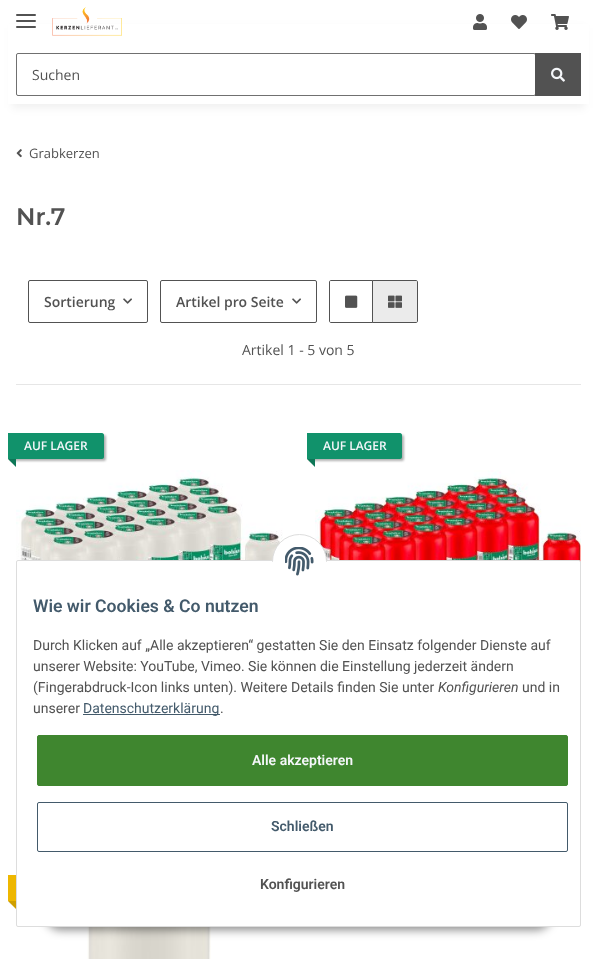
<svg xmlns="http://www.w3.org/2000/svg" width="597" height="959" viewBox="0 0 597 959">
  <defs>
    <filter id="blur1" x="-50%" y="-200%" width="200%" height="500%"><feGaussianBlur stdDeviation="4.5"/></filter>
    <filter id="blur2" x="-50%" y="-200%" width="200%" height="500%"><feGaussianBlur stdDeviation="1"/></filter>
    <filter id="blur3" x="-50%" y="-200%" width="200%" height="500%"><feGaussianBlur stdDeviation="5"/></filter>
  </defs>
  <rect width="100%" height="100%" fill="#ffffff"/>
  <rect x="12" y="28" width="573" height="80" fill="#000000" fill-opacity="0.06" filter="url(#blur1)"/>
  <rect x="8" y="24" width="581" height="80" fill="#ffffff"/>
  <rect x="16" y="20" width="20" height="2" rx="1" fill="#525252"/>
  <rect x="16" y="14" width="20" height="2" rx="1" fill="#525252"/>
  <rect x="16" y="26" width="20" height="2" rx="1" fill="#525252"/>
  <image x="52" y="7" width="70" height="29" href="img1.png"/>
  <image x="473" y="14" width="14" height="16" href="img2.png"/>
  <image x="511" y="15" width="16" height="14" href="img3.png"/>
  <image x="551" y="14" width="18" height="16" href="img4.png"/>
  <rect x="16.5" y="53.5" width="519" height="42" rx="1.5" fill="none" stroke="#707070"/>
  <text x="32" y="80" font-family="Open Sans" font-size="14" fill="#525252">Suchen</text>
  <rect x="535" y="53" width="46" height="43" fill="#525252"/>
  <image x="551" y="67" width="14" height="15" href="img5.png"/>
  <image x="16" y="149" width="6" height="9" href="img6.png"/>
  <text x="29" y="158" font-family="Open Sans" font-size="13" fill="#525252">Grabkerzen</text>
  <text x="16" y="225" font-family="Montserrat" font-size="24" font-weight="600" fill="#525252">Nr.7</text>
  <rect x="28.5" y="280.5" width="119" height="42" rx="1.5" fill="none" stroke="#525252"/>
  <text x="44" y="307" font-family="Open Sans" font-size="14" font-weight="600" fill="#525252">Sortierung</text>
  <image x="123" y="298" width="9" height="6" href="img7.png"/>
  <rect x="160.5" y="280.5" width="156" height="42" rx="1.5" fill="none" stroke="#525252"/>
  <text x="176" y="307" font-family="Open Sans" font-size="14" font-weight="600" fill="#525252">Artikel pro Seite</text>
  <image x="292" y="298" width="9" height="6" href="img7.png"/>
  <path d="M331 280.5H372.5V322.5H331C330 322.5 329.5 322 329.5 321V282C329.5 281 330 280.5 331 280.5Z" fill="none" stroke="#525252"/>
  <image x="345" y="295" width="13" height="13" href="img8.png"/>
  <path d="M372.5 280.5H416C417 280.5 417.5 281 417.5 282V321C417.5 322 417 322.5 416 322.5H372.5Z" fill="#ebebeb" stroke="#525252"/>
  <image x="388" y="295" width="14" height="13" href="img9.png"/>
  <text x="242" y="355" font-family="Open Sans" font-size="14" fill="#525252">Artikel 1 - 5 von 5</text>
  <rect x="16" y="384" width="565" height="1" fill="#e6e6e6"/>
  <rect x="10" y="435" width="96" height="26" rx="2" fill="#000000" fill-opacity="0.3" filter="url(#blur2)"/>
  <path d="M8 433H102C103 433 104 434 104 435V457C104 458 103 459 102 459H8Z" fill="#11926b"/>
  <text x="24" y="450" font-family="Open Sans" font-size="12" font-weight="600" fill="#f5f7fa">AUF LAGER</text>
  <path d="M16 459V467L8 459Z" fill="#0e7757"/>
  <image x="16" y="470" width="267" height="92" href="img10.png"/>
  <rect x="309" y="435" width="95" height="26" rx="2" fill="#000000" fill-opacity="0.3" filter="url(#blur2)"/>
  <path d="M307 433H400C401 433 402 434 402 435V457C402 458 401 459 400 459H307Z" fill="#11926b"/>
  <text x="323" y="450" font-family="Open Sans" font-size="12" font-weight="600" fill="#f5f7fa">AUF LAGER</text>
  <path d="M315 459V467L307 459Z" fill="#0e7757"/>
  <image x="315" y="470" width="266" height="92" href="img11.png"/>
  <rect x="10" y="877" width="101" height="26" rx="2" fill="#000000" fill-opacity="0.3" filter="url(#blur2)"/>
  <rect x="8" y="875" width="8" height="26" fill="#eeb700"/>
  <path d="M16 901V909L8 901Z" fill="#cf9f00"/>
  <image x="87" y="927" width="124" height="32" href="img12.png"/>
  <rect x="45" y="898" width="507" height="32" rx="16" fill="#000000" fill-opacity="0.45" filter="url(#blur3)"/>
  <rect x="16.5" y="560.5" width="564" height="366" rx="1.5" fill="#ffffff" stroke="#dddddd"/>
  <circle cx="299.5" cy="561.5" r="27" fill="#ffffff" stroke="#dddddd"/>
  <rect x="272" y="562" width="55" height="27" fill="#ffffff"/>
  <image x="285" y="547" width="29" height="29" href="img13.png"/>
  <text x="33" y="612" font-family="Roboto" font-size="17.6" font-weight="600" fill="#435a6b">Wie wir Cookies &amp; Co nutzen</text>
  <text x="33" y="650" font-family="Roboto" font-size="14" fill="#525252">Durch Klicken auf „Alle akzeptieren“ gestatten Sie den Einsatz folgender Dienste auf</text>
  <text x="33" y="671" font-family="Roboto" font-size="14" fill="#525252">unserer Website: YouTube, Vimeo. Sie können die Einstellung jederzeit ändern</text>
  <text x="33" y="692" font-family="Roboto" font-size="14" fill="#525252">(Fingerabdruck-Icon links unten). Weitere Details finden Sie unter</text>
  <text x="438" y="692" font-family="Roboto" font-size="14" font-style="italic" fill="#525252">Konfigurieren</text>
  <text x="522" y="692" font-family="Roboto" font-size="14" fill="#525252">und in</text>
  <text x="33" y="713" font-family="Roboto" font-size="14" fill="#525252">unserer</text>
  <rect x="83" y="714" width="137" height="1" fill="#435a6b"/>
  <text x="83" y="713" font-family="Roboto" font-size="14" fill="#435a6b">Datenschutzerklärung</text>
  <text x="220" y="713" font-family="Roboto" font-size="14" fill="#525252">.</text>
  <rect x="37.5" y="735.5" width="530" height="50" rx="1.5" fill="#3f862f" stroke="#3f862f"/>
  <text x="252" y="765" font-family="Roboto" font-size="14" font-weight="600" fill="#f5f7fa">Alle akzeptieren</text>
  <rect x="37.5" y="802.5" width="530" height="49" rx="1.5" fill="none" stroke="#435a6b"/>
  <text x="271" y="831" font-family="Roboto" font-size="14" font-weight="600" fill="#435a6b">Schließen</text>
  <text x="260" y="889" font-family="Roboto" font-size="14" font-weight="600" fill="#525252">Konfigurieren</text>
</svg>
